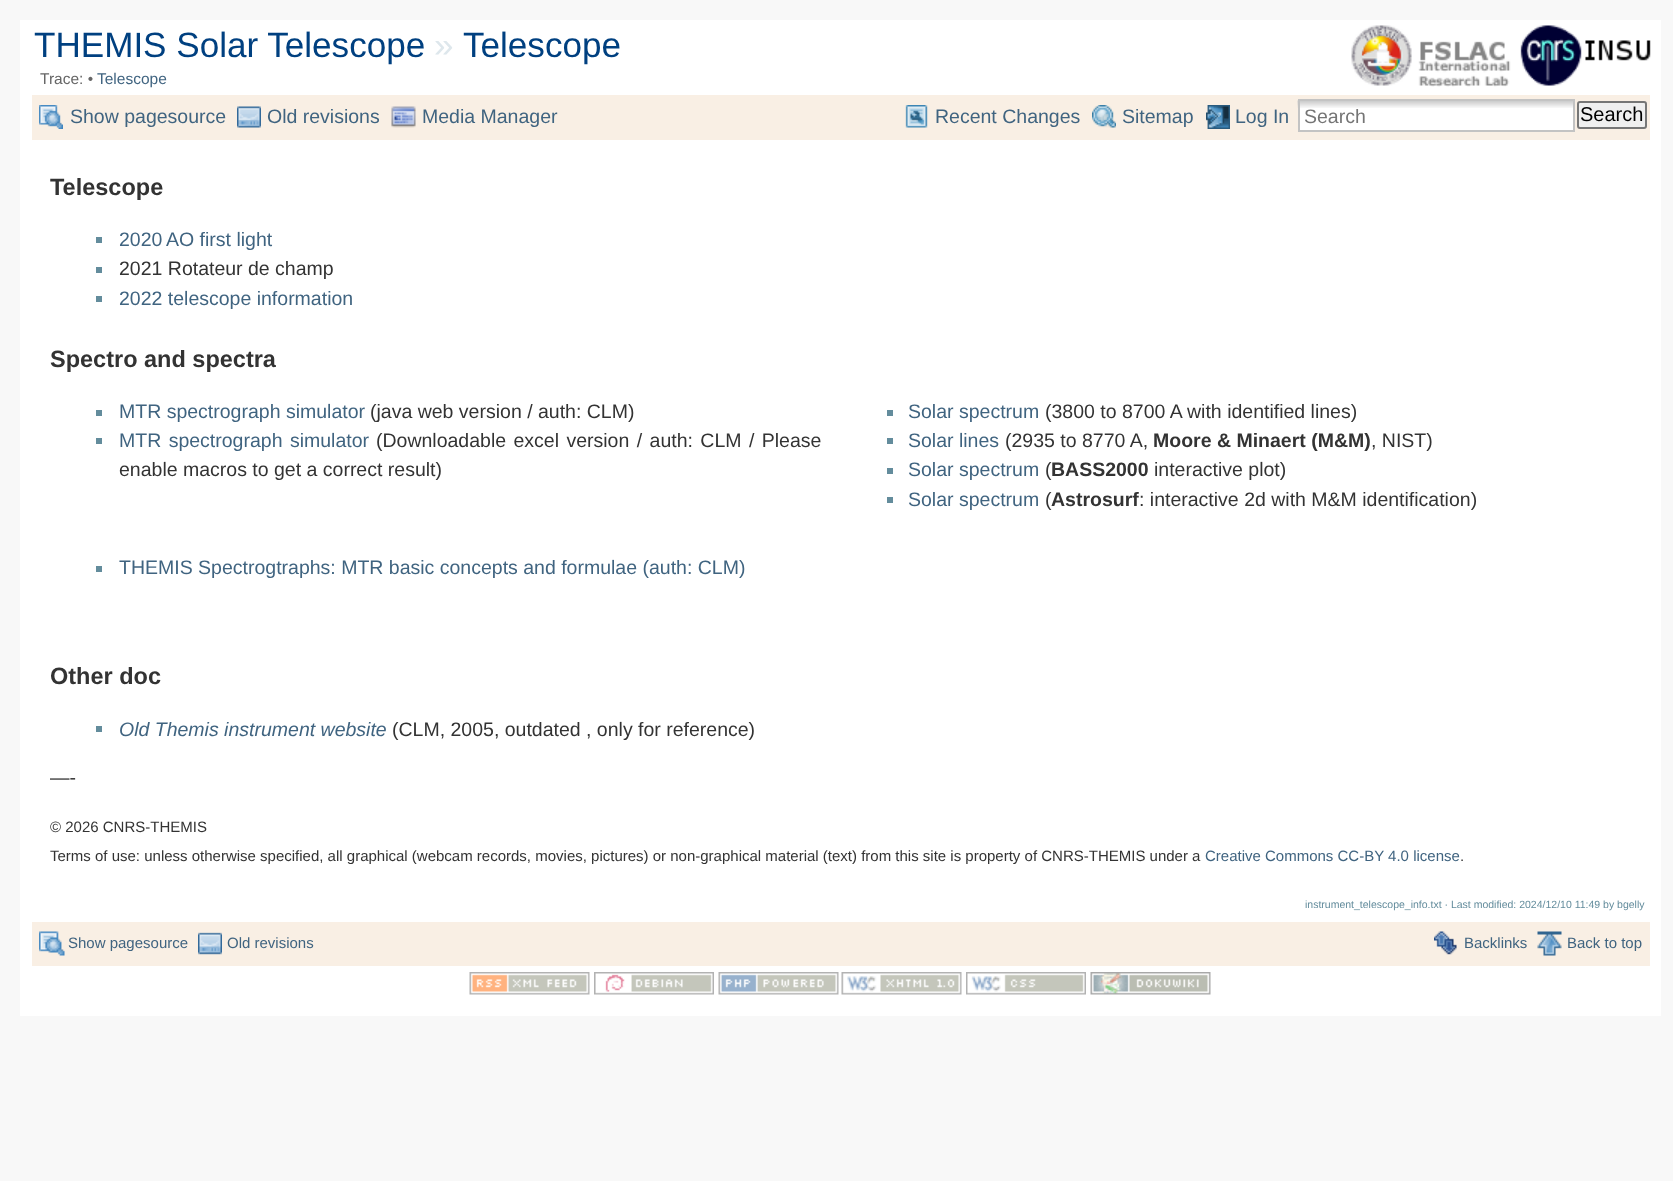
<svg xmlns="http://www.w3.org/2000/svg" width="1673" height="1181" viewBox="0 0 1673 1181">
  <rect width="100%" height="100%" fill="#f8f8f8"/>
  <rect x="20" y="20" width="1641" height="996" fill="#ffffff"/>
  <text x="34" y="57" font-family="Liberation Sans" font-size="35.1" fill="#004080">THEMIS Solar Telescope</text>
  <image x="1351" y="25" width="300" height="62" href="img1.png"/>
  <text x="434" y="57" font-family="Liberation Sans" font-size="35.1" fill="#dee7ec">»</text>
  <text x="463" y="57" font-family="Liberation Sans" font-size="35.1" fill="#004080">Telescope</text>
  <text x="40" y="84" font-family="Liberation Sans" font-size="15.5" fill="#666666">Trace: •</text>
  <text x="97" y="84" font-family="Liberation Sans" font-size="15.5" fill="#406480">Telescope</text>
  <rect x="32" y="95" width="1618" height="45" fill="#f9efe4"/>
  <image x="39" y="105" width="24" height="24" href="img2.png"/>
  <text x="70" y="123" font-family="Liberation Sans" font-size="19.5" fill="#406480">Show pagesource</text>
  <image x="237" y="106" width="24" height="22" href="img3.png"/>
  <text x="267" y="123" font-family="Liberation Sans" font-size="19.5" fill="#406480">Old revisions</text>
  <image x="391" y="106" width="25" height="22" href="img4.png"/>
  <text x="422" y="123" font-family="Liberation Sans" font-size="19.5" fill="#406480">Media Manager</text>
  <image x="905" y="105" width="23" height="23" href="img5.png"/>
  <text x="935" y="123" font-family="Liberation Sans" font-size="19.5" fill="#406480">Recent Changes</text>
  <image x="1092" y="105" width="24" height="23" href="img6.png"/>
  <text x="1122" y="123" font-family="Liberation Sans" font-size="19.5" fill="#406480">Sitemap</text>
  <image x="1206" y="105" width="24" height="24" href="img7.png"/>
  <text x="1235" y="123" font-family="Liberation Sans" font-size="19.5" fill="#406480">Log In</text>
  <rect x="1300" y="101" width="273" height="29" fill="#ffffff"/>
  <image x="1297" y="100" width="276" height="8" href="img8.png"/>
  <rect x="1299" y="100" width="275" height="31" fill="none" stroke="#c3c3c3" stroke-width="2"/>
  <text x="1304" y="123" font-family="Liberation Sans" font-size="19.5" fill="#757575">Search</text>
  <rect x="1578" y="102" width="68" height="26" rx="2" fill="#efefef" stroke="#767676" stroke-width="2"/>
  <text x="1580" y="121" font-family="Liberation Sans" font-size="20" fill="#000000">Search</text>
  <text x="50" y="195" font-family="Liberation Sans" font-size="23.5" font-weight="bold" fill="#333333">Telescope</text>
  <rect x="96" y="237" width="6" height="6" fill="#638c9c"/>
  <text x="119" y="246" font-family="Liberation Sans" font-size="19.5" fill="#406480">2020</text>
  <text x="166" y="246" font-family="Liberation Sans" font-size="19.5" fill="#406480">AO first light</text>
  <rect x="96" y="267" width="6" height="6" fill="#638c9c"/>
  <text x="119" y="275" font-family="Liberation Sans" font-size="19.5" fill="#333333">2021 Rotateur de champ</text>
  <rect x="96" y="296" width="6" height="6" fill="#638c9c"/>
  <text x="119" y="305" font-family="Liberation Sans" font-size="19.5" fill="#406480">2022 telescope information</text>
  <text x="50" y="367" font-family="Liberation Sans" font-size="23.5" font-weight="bold" fill="#333333">Spectro and spectra</text>
  <rect x="96" y="410" width="6" height="6" fill="#638c9c"/>
  <text x="119" y="418" font-family="Liberation Sans" font-size="19.5" fill="#406480">MTR spectrograph simulator</text>
  <text x="370" y="418" font-family="Liberation Sans" font-size="19.5" fill="#333333">(java web version / auth: CLM)</text>
  <rect x="96" y="438" width="6" height="6" fill="#638c9c"/>
  <text x="119" y="447" word-spacing="2" font-family="Liberation Sans" font-size="19.5" fill="#406480">MTR spectrograph simulator</text>
  <text x="376" y="447" word-spacing="2" font-family="Liberation Sans" font-size="19.5" fill="#333333">(Downloadable excel version / auth: CLM / Please</text>
  <text x="119" y="476" font-family="Liberation Sans" font-size="19.5" fill="#333333">enable macros to get a correct result)</text>
  <rect x="96" y="566" width="6" height="6" fill="#638c9c"/>
  <text x="119" y="574" font-family="Liberation Sans" font-size="19.5" fill="#406480">THEMIS Spectrogtraphs: MTR basic concepts and formulae (auth: CLM)</text>
  <rect x="887" y="410" width="6" height="6" fill="#638c9c"/>
  <text x="908" y="418" font-family="Liberation Sans" font-size="19.5" fill="#406480">Solar spectrum</text>
  <text x="1045" y="418" font-family="Liberation Sans" font-size="19.5" fill="#333333">(3800 to 8700 A with identified lines)</text>
  <rect x="887" y="438" width="6" height="6" fill="#638c9c"/>
  <text x="908" y="447" font-family="Liberation Sans" font-size="19.5" fill="#406480">Solar lines</text>
  <text x="1005" y="447" font-family="Liberation Sans" font-size="19.5" fill="#333333">(2935 to 8770 A,</text>
  <text x="1153" y="447" font-family="Liberation Sans" font-size="19.5" font-weight="bold" fill="#333333">Moore &amp; Minaert (M&amp;M)</text>
  <text x="1371" y="447" font-family="Liberation Sans" font-size="19.5" fill="#333333">, NIST)</text>
  <rect x="887" y="468" width="6" height="6" fill="#638c9c"/>
  <text x="908" y="476" font-family="Liberation Sans" font-size="19.5" fill="#406480">Solar spectrum</text>
  <text x="1045" y="476" font-family="Liberation Sans" font-size="19.5" fill="#333333">(</text>
  <text x="1051" y="476" font-family="Liberation Sans" font-size="19.5" font-weight="bold" fill="#333333">BASS2000</text>
  <text x="1154" y="476" font-family="Liberation Sans" font-size="19.5" fill="#333333">interactive plot)</text>
  <rect x="887" y="497" width="6" height="6" fill="#638c9c"/>
  <text x="908" y="506" font-family="Liberation Sans" font-size="19.5" fill="#406480">Solar spectrum</text>
  <text x="1045" y="506" font-family="Liberation Sans" font-size="19.5" fill="#333333">(</text>
  <text x="1051" y="506" font-family="Liberation Sans" font-size="19.5" font-weight="bold" fill="#333333">Astrosurf</text>
  <text x="1139" y="506" font-family="Liberation Sans" font-size="19.5" fill="#333333">: interactive 2d with M&amp;M identification)</text>
  <text x="50" y="684" font-family="Liberation Sans" font-size="23.5" font-weight="bold" fill="#333333">Other doc</text>
  <rect x="96" y="726" width="6" height="6" fill="#638c9c"/>
  <text x="119" y="736" font-family="Liberation Sans" font-size="19.5" font-style="italic" fill="#406480">Old Themis instrument website</text>
  <text x="392" y="736" font-family="Liberation Sans" font-size="19.5" fill="#333333">(CLM, 2005, outdated , only for reference)</text>
  <text x="50" y="784" font-family="Liberation Sans" font-size="19.5" fill="#333333">—-</text>
  <text x="50" y="832" font-family="Liberation Sans" font-size="15" fill="#333333">© 2026 CNRS-THEMIS</text>
  <text x="50" y="861" font-family="Liberation Sans" font-size="15" fill="#333333">Terms of use: unless otherwise specified, all graphical (webcam records, movies, pictures) or non-graphical material (text) from this site is property of CNRS-THEMIS under a</text>
  <text x="1205" y="861" font-family="Liberation Sans" font-size="15" fill="#406480">Creative Commons CC-BY 4.0 license</text>
  <text x="1460" y="861" font-family="Liberation Sans" font-size="15" fill="#333333">.</text>
  <text x="1305" y="908" font-family="Liberation Sans" font-size="10.5" fill="#638c9c">instrument_telescope_info.txt · Last modified: 2024/12/10 11:49 by bgelly</text>
  <rect x="32" y="922" width="1618" height="44" fill="#f9efe4"/>
  <image x="39" y="931" width="26" height="25" href="img9.png"/>
  <text x="68" y="948" font-family="Liberation Sans" font-size="15" fill="#406480">Show pagesource</text>
  <image x="198" y="932" width="24" height="23" href="img10.png"/>
  <text x="227" y="948" font-family="Liberation Sans" font-size="15" fill="#406480">Old revisions</text>
  <image x="1434" y="931" width="23" height="24" href="img11.png"/>
  <text x="1464" y="948" font-family="Liberation Sans" font-size="15" fill="#406480">Backlinks</text>
  <image x="1537" y="931" width="25" height="25" href="img12.png"/>
  <text x="1567" y="948" font-family="Liberation Sans" font-size="15" fill="#406480">Back to top</text>
  <image x="469" y="972" width="121" height="23" href="img13.png"/>
  <image x="594" y="972" width="120" height="23" href="img14.png"/>
  <image x="718" y="972" width="121" height="23" href="img15.png"/>
  <image x="841" y="972" width="121" height="23" href="img16.png"/>
  <image x="966" y="972" width="120" height="23" href="img17.png"/>
  <image x="1090" y="972" width="121" height="23" href="img18.png"/>
</svg>
